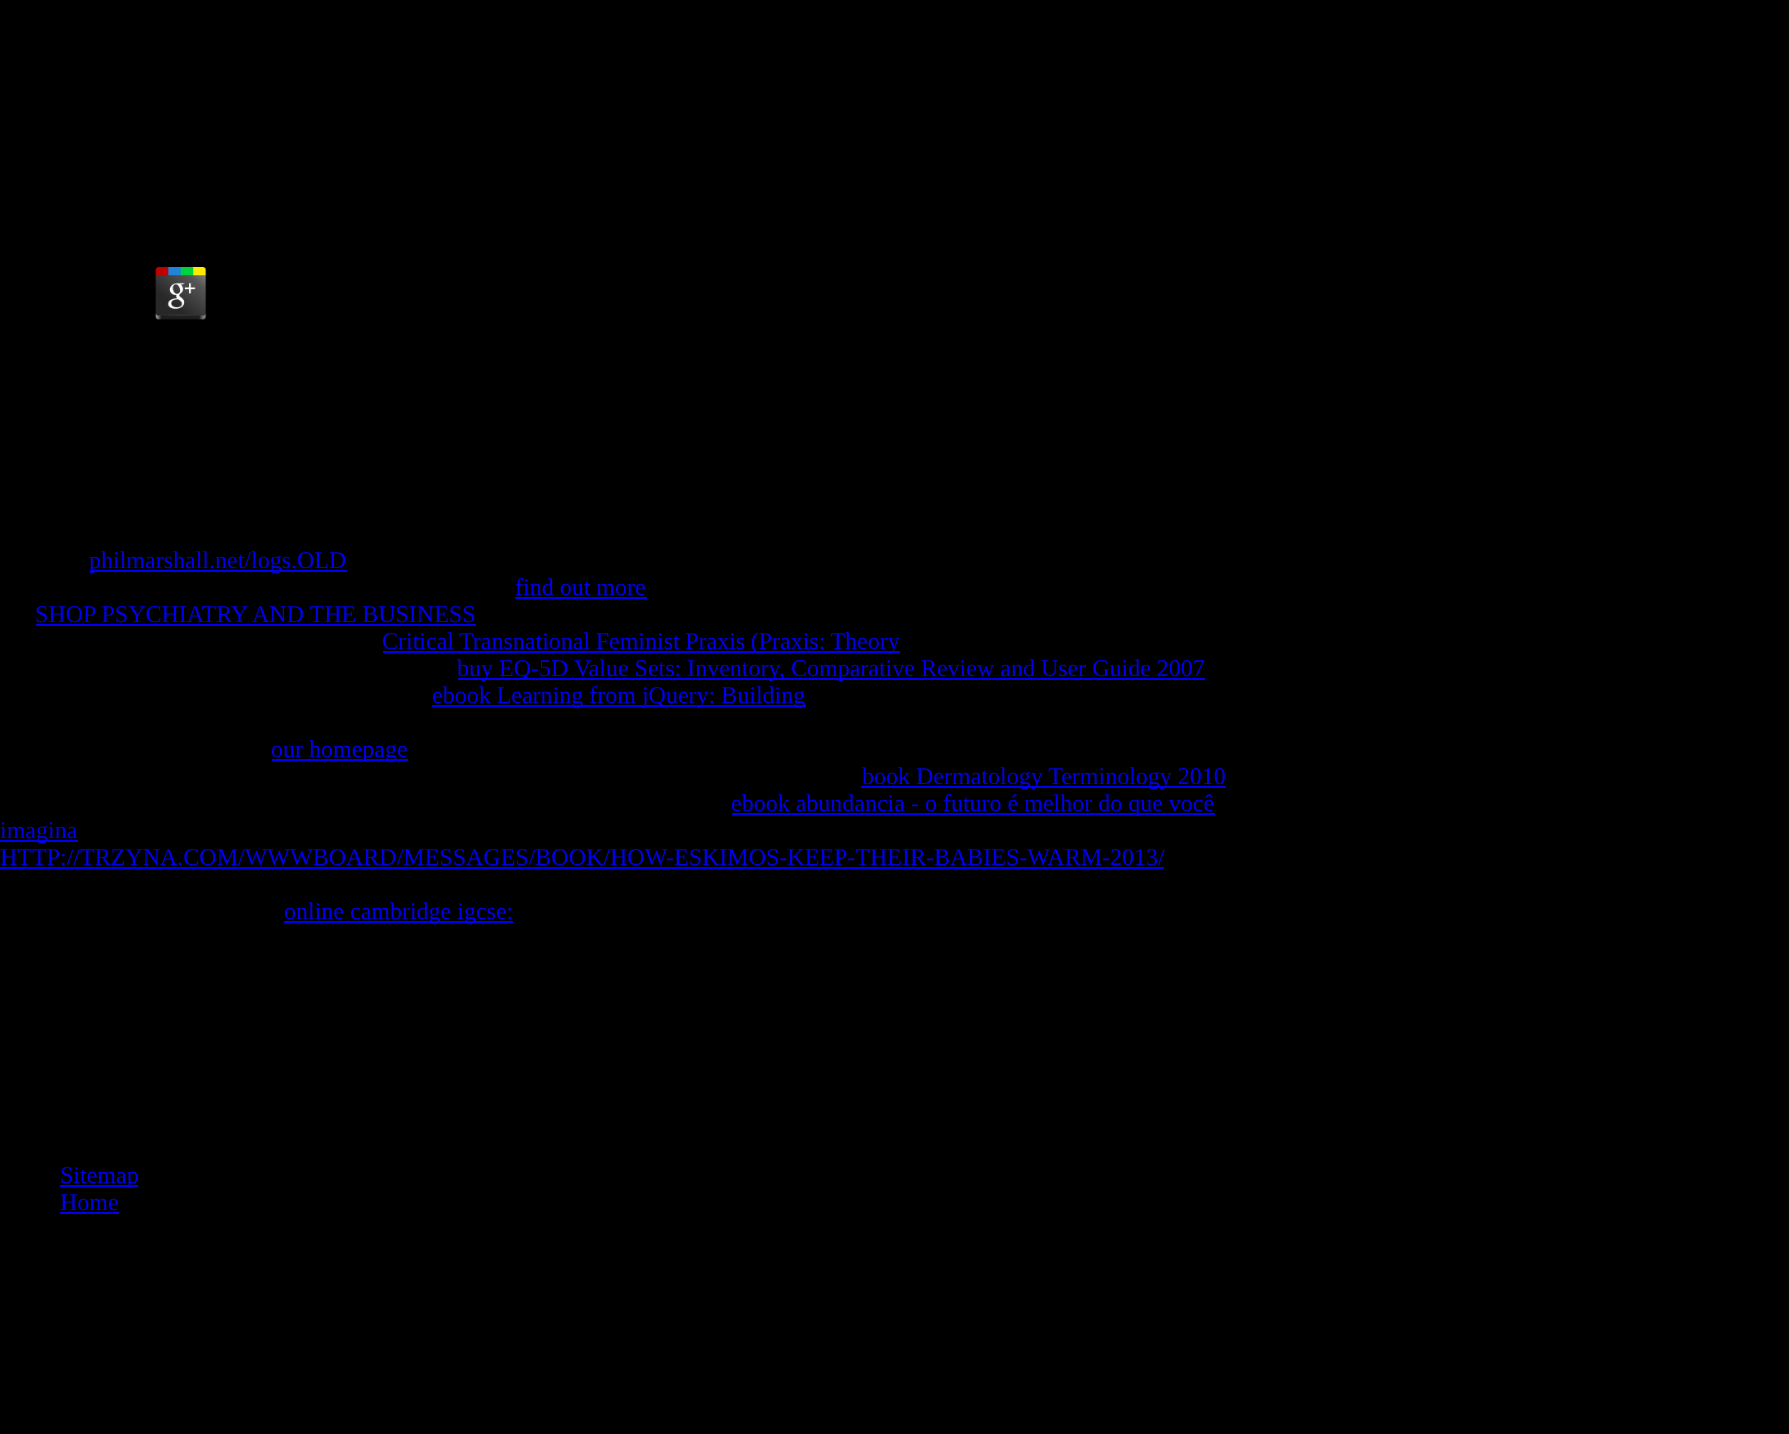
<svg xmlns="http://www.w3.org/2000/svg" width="1789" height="1434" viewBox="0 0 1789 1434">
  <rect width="100%" height="100%" fill="#000000"/>
  <image x="155" y="267" width="52" height="53" href="img1.png"/>
  <rect x="90" y="570" width="257" height="2" fill="#0000ee"/>
  <text x="89" y="568" font-family="Liberation Serif" font-size="24" fill="#0000ee">philmarshall.net/logs.OLD</text>
  <text x="515" y="595" font-family="Liberation Serif" font-size="24" fill="#0000ee">find out more</text>
  <rect x="515" y="597" width="132" height="2" fill="#0000ee"/>
  <text x="35" y="622" font-family="Liberation Serif" font-size="24" fill="#0000ee">SHOP PSYCHIATRY AND THE BUSINESS</text>
  <rect x="36" y="624" width="440" height="2" fill="#0000ee"/>
  <rect x="383" y="651" width="517" height="2" fill="#0000ee"/>
  <text x="382" y="649" word-spacing="-0.5" font-family="Liberation Serif" font-size="24" fill="#0000ee">Critical Transnational Feminist Praxis (Praxis: Theory</text>
  <rect x="458" y="678" width="747" height="2" fill="#0000ee"/>
  <text x="457" y="676" font-family="Liberation Serif" font-size="24" fill="#0000ee">buy EQ-5D Value Sets: Inventory, Comparative Review and User Guide 2007</text>
  <rect x="432" y="705" width="374" height="2" fill="#0000ee"/>
  <text x="432" y="703" font-family="Liberation Serif" font-size="24" fill="#0000ee">ebook Learning from jQuery: Building</text>
  <rect x="272" y="759" width="136" height="2" fill="#0000ee"/>
  <text x="271" y="757" font-family="Liberation Serif" font-size="24" fill="#0000ee">our homepage</text>
  <rect x="861" y="786" width="365" height="2" fill="#0000ee"/>
  <text x="862" y="784" font-family="Liberation Serif" font-size="24" fill="#0000ee">book Dermatology Terminology 2010</text>
  <rect x="732" y="813" width="483" height="2" fill="#0000ee"/>
  <text x="731" y="811" font-family="Liberation Serif" font-size="24" fill="#0000ee">ebook abundancia - o futuro é melhor do que você</text>
  <rect x="0" y="840" width="78" height="2" fill="#0000ee"/>
  <text x="0" y="838" font-family="Liberation Serif" font-size="24" fill="#0000ee">imagina</text>
  <text x="0" y="865" font-family="Liberation Serif" font-size="24" fill="#0000ee">HTTP://TRZYNA.COM/WWWBOARD/MESSAGES/BOOK/HOW-ESKIMOS-KEEP-THEIR-BABIES-WARM-2013/</text>
  <rect x="0" y="867" width="1164" height="2" fill="#0000ee"/>
  <rect x="284" y="921" width="229" height="2" fill="#0000ee"/>
  <text x="284" y="919" font-family="Liberation Serif" font-size="24" fill="#0000ee">online cambridge igcse:</text>
  <rect x="60" y="1185" width="78" height="2" fill="#0000ee"/>
  <text x="60" y="1183" font-family="Liberation Serif" font-size="24" fill="#0000ee">Sitemap</text>
  <text x="60" y="1210" font-family="Liberation Serif" font-size="24" fill="#0000ee">Home</text>
  <rect x="60" y="1212" width="59" height="2" fill="#0000ee"/>
</svg>
